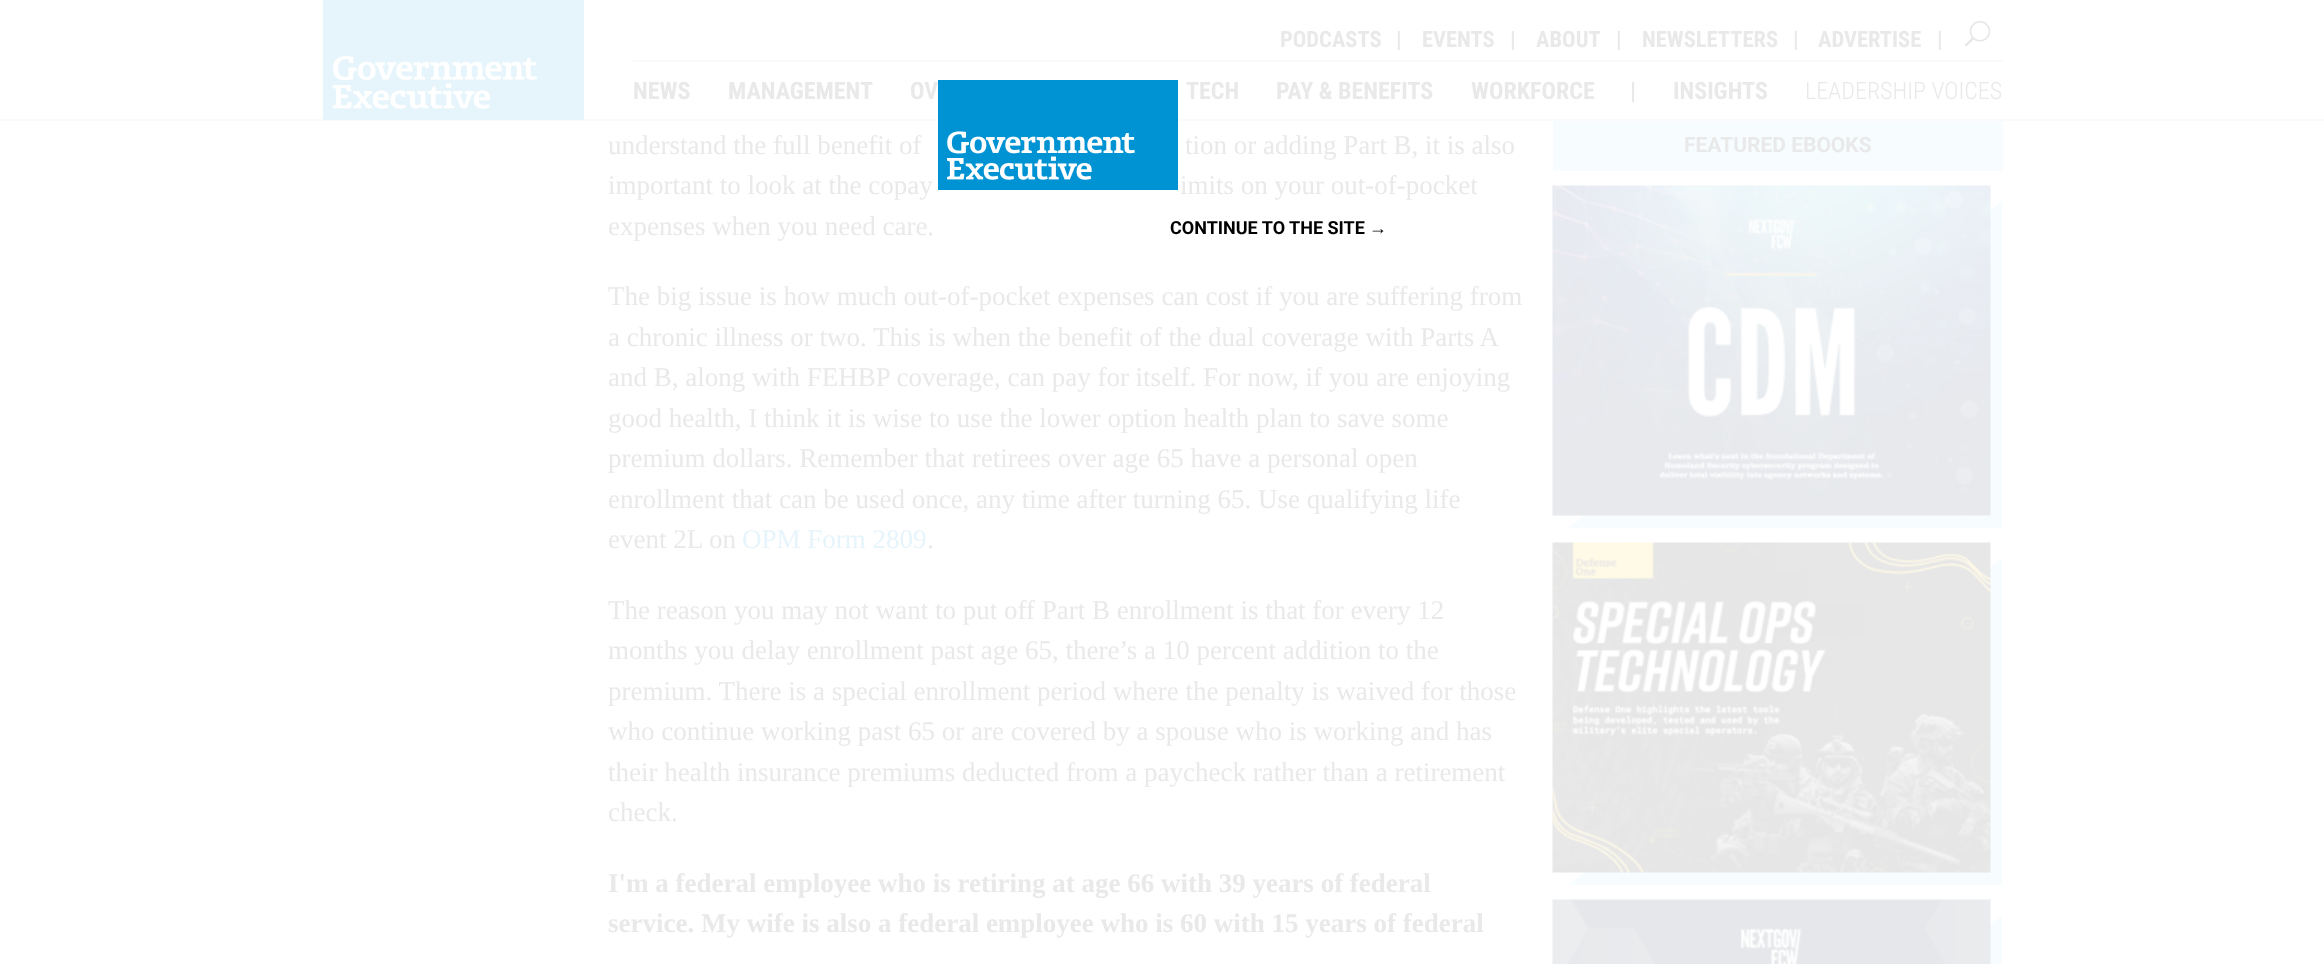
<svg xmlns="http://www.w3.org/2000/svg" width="2324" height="964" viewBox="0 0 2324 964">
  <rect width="100%" height="100%" fill="#ffffff"/>
  <rect x="0" y="119" width="2324" height="2" fill="#fafafa"/>
  <image x="323" y="0" width="261" height="120" href="img1.png"/>
  <text x="1280" y="47" font-family="Roboto Condensed" font-size="22.5" font-weight="bold" fill="#e9e9ea">PODCASTS</text>
  <text x="1396" y="47" font-family="Roboto Condensed" font-size="22.5" font-weight="bold" fill="#e9e9ea">|</text>
  <text x="1422" y="47" font-family="Roboto Condensed" font-size="22.5" font-weight="bold" fill="#e9e9ea">EVENTS</text>
  <text x="1510" y="47" font-family="Roboto Condensed" font-size="22.5" font-weight="bold" fill="#e9e9ea">|</text>
  <text x="1536" y="47" font-family="Roboto Condensed" font-size="22.5" font-weight="bold" fill="#e9e9ea">ABOUT</text>
  <text x="1616" y="47" font-family="Roboto Condensed" font-size="22.5" font-weight="bold" fill="#e9e9ea">|</text>
  <text x="1642" y="47" font-family="Roboto Condensed" font-size="22.5" font-weight="bold" fill="#e9e9ea">NEWSLETTERS</text>
  <text x="1793" y="47" font-family="Roboto Condensed" font-size="22.5" font-weight="bold" fill="#e9e9ea">|</text>
  <text x="1818" y="47" font-family="Roboto Condensed" font-size="22.5" font-weight="bold" fill="#e9e9ea">ADVERTISE</text>
  <text x="1937" y="47" font-family="Roboto Condensed" font-size="22.5" font-weight="bold" fill="#e9e9ea">|</text>
  <image x="1965" y="21" width="26" height="26" href="img2.png"/>
  <rect x="633" y="60" width="1370" height="2" fill="#fafafa"/>
  <text x="633" y="99" font-family="Roboto Condensed" font-size="24" font-weight="bold" fill="#e9e9ea">NEWS</text>
  <text x="728" y="99" font-family="Roboto Condensed" font-size="24" font-weight="bold" fill="#e9e9ea">MANAGEMENT</text>
  <text x="910" y="99" font-family="Roboto Condensed" font-size="24" font-weight="bold" fill="#e9e9ea">OV</text>
  <text x="1186" y="99" font-family="Roboto Condensed" font-size="24" font-weight="bold" fill="#e9e9ea">TECH</text>
  <text x="1276" y="99" font-family="Roboto Condensed" font-size="24" font-weight="bold" fill="#e9e9ea">PAY &amp; BENEFITS</text>
  <text x="1471" y="99" font-family="Roboto Condensed" font-size="24" font-weight="bold" fill="#e9e9ea">WORKFORCE</text>
  <text x="1630" y="99" font-family="Roboto Condensed" font-size="24" font-weight="bold" fill="#e9e9ea">|</text>
  <text x="1673" y="99" font-family="Roboto Condensed" font-size="24" font-weight="bold" fill="#e9e9ea">INSIGHTS</text>
  <text x="1805" y="99" font-family="Roboto Condensed" font-size="24" font-weight="300" fill="#e9e9ea">LEADERSHIP VOICES</text>
  <text x="608" y="154" font-family="Liberation Serif" font-size="27" fill="#e9e9ea">understand the full benefit of</text>
  <text x="1185" y="154" font-family="Liberation Serif" font-size="27" fill="#e9e9ea">tion or adding Part B, it is also</text>
  <text x="608" y="194" font-family="Liberation Serif" font-size="27" fill="#e9e9ea">important to look at the copay</text>
  <text x="1180" y="194" font-family="Liberation Serif" font-size="27" fill="#e9e9ea">imits on your out-of-pocket</text>
  <text x="608" y="235" font-family="Liberation Serif" font-size="27" fill="#e9e9ea">expenses when you need care.</text>
  <text x="608" y="305" font-family="Liberation Serif" font-size="27" fill="#e9e9ea">The big issue is how much out-of-pocket expenses can cost if you are suffering from</text>
  <text x="608" y="346" font-family="Liberation Serif" font-size="27" fill="#e9e9ea">a chronic illness or two. This is when the benefit of the dual coverage with Parts A</text>
  <text x="608" y="386" font-family="Liberation Serif" font-size="27" fill="#e9e9ea">and B, along with FEHBP coverage, can pay for itself. For now, if you are enjoying</text>
  <text x="608" y="427" font-family="Liberation Serif" font-size="27" fill="#e9e9ea">good health, I think it is wise to use the lower option health plan to save some</text>
  <text x="608" y="467" font-family="Liberation Serif" font-size="27" fill="#e9e9ea">premium dollars. Remember that retirees over age 65 have a personal open</text>
  <text x="608" y="508" font-family="Liberation Serif" font-size="27" fill="#e9e9ea">enrollment that can be used once, any time after turning 65. Use qualifying life</text>
  <text x="608" y="548" font-family="Liberation Serif" font-size="27" fill="#e9e9ea">event 2L on</text>
  <text x="742" y="548" font-family="Liberation Serif" font-size="27" fill="#e6f4fb">OPM Form 2809</text>
  <text x="927" y="548" font-family="Liberation Serif" font-size="27" fill="#e9e9ea">.</text>
  <text x="608" y="619" font-family="Liberation Serif" font-size="27" fill="#e9e9ea">The reason you may not want to put off Part B enrollment is that for every 12</text>
  <text x="608" y="659" font-family="Liberation Serif" font-size="27" fill="#e9e9ea">months you delay enrollment past age 65, there’s a 10 percent addition to the</text>
  <text x="608" y="700" font-family="Liberation Serif" font-size="27" fill="#e9e9ea">premium. There is a special enrollment period where the penalty is waived for those</text>
  <text x="608" y="740" font-family="Liberation Serif" font-size="27" fill="#e9e9ea">who continue working past 65 or are covered by a spouse who is working and has</text>
  <text x="608" y="781" font-family="Liberation Serif" font-size="27" fill="#e9e9ea">their health insurance premiums deducted from a paycheck rather than a retirement</text>
  <text x="608" y="821" font-family="Liberation Serif" font-size="27" fill="#e9e9ea">check.</text>
  <text x="608" y="892" font-family="Liberation Serif" font-size="27" font-weight="bold" fill="#e9e9ea">I'm a federal employee who is retiring at age 66 with 39 years of federal</text>
  <text x="608" y="932" font-family="Liberation Serif" font-size="27" font-weight="bold" fill="#e9e9ea">service. My wife is also a federal employee who is 60 with 15 years of federal</text>
  <rect x="1553" y="121" width="450" height="50" fill="#f7fdff"/>
  <text x="1684" y="152" font-family="Roboto" font-size="21" font-weight="bold" fill="#e9e9ea">FEATURED EBOOKS</text>
  <path d="M1568 528L2002 201V528Z" fill="#f7fdff"/>
  <image x="1552" y="185" width="439" height="331" href="img3.png"/>
  <path d="M1568 885L2002 558V885Z" fill="#f7fdff"/>
  <image x="1552" y="542" width="439" height="331" href="img4.png"/>
  <path d="M1568 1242L2002 915V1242Z" fill="#f7fdff"/>
  <image x="1552" y="899" width="439" height="65" href="img5.png"/>
  <image x="938" y="80" width="240" height="110" href="img6.png"/>
  <text x="1170" y="234" font-family="Roboto" font-size="18" font-weight="bold" fill="#000000">CONTINUE TO THE SITE</text>
  <text x="1369" y="234" font-family="Liberation Sans" font-size="18" font-weight="bold" fill="#000000">→</text>
</svg>
